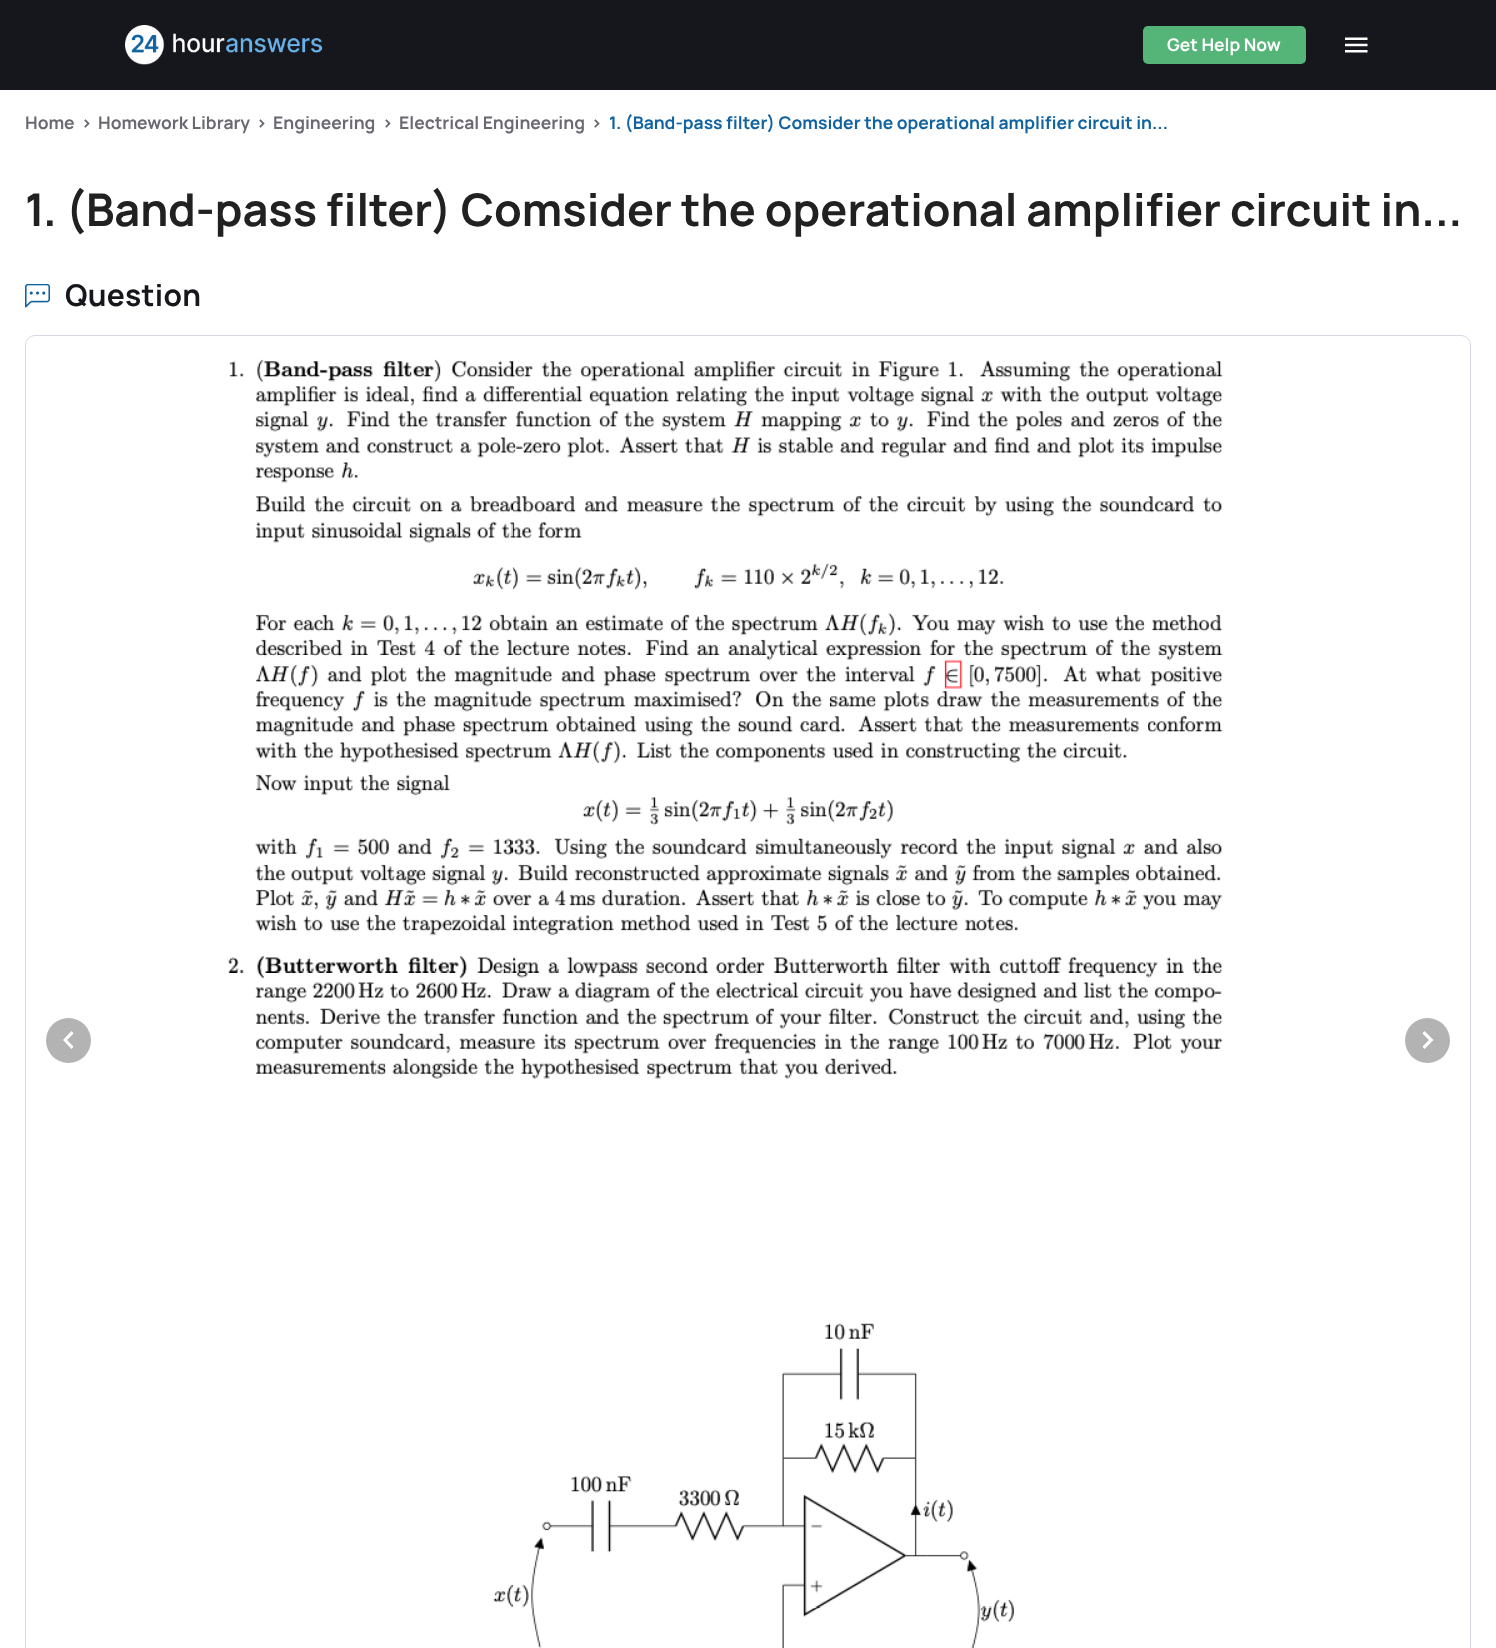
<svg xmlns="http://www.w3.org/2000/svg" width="1496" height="1648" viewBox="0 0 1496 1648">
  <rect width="100%" height="100%" fill="#ffffff"/>
  <rect x="0" y="0" width="1496" height="90" fill="#16161d"/>
  <image x="125" y="25" width="198" height="40" href="img1.png"/>
  <rect x="1143" y="26" width="163" height="38" rx="5" fill="#55b477"/>
  <text x="1167" y="51" font-family="Manrope" font-size="17.5" font-weight="bold" fill="#ffffff">Get Help Now</text>
  <image x="1345" y="37" width="23" height="16" href="img2.png"/>
  <text x="25" y="129" font-family="Manrope" font-size="17.5" font-weight="bold" fill="#696971">Home</text>
  <text x="81" y="129" font-family="Manrope" font-size="17.5" font-weight="bold" fill="#696971">&gt;</text>
  <text x="98" y="129" font-family="Manrope" font-size="17.5" font-weight="bold" fill="#696971">Homework Library</text>
  <text x="256" y="129" font-family="Manrope" font-size="17.5" font-weight="bold" fill="#696971">&gt;</text>
  <text x="273" y="129" font-family="Manrope" font-size="17.5" font-weight="bold" fill="#696971">Engineering</text>
  <text x="382" y="129" font-family="Manrope" font-size="17.5" font-weight="bold" fill="#696971">&gt;</text>
  <text x="399" y="129" font-family="Manrope" font-size="17.5" font-weight="bold" fill="#696971">Electrical Engineering</text>
  <text x="591" y="129" font-family="Manrope" font-size="17.5" font-weight="bold" fill="#696971">&gt;</text>
  <text x="609" y="129" font-family="Manrope" font-size="17.5" font-weight="bold" fill="#1063a0">1. (Band-pass filter) Comsider the operational amplifier circuit in...</text>
  <text x="25" y="226" font-family="Manrope" font-size="45" font-weight="bold" fill="#212121">1. (Band-pass filter) Comsider the operational amplifier circuit in...</text>
  <image x="25" y="284" width="25" height="24" href="img3.png"/>
  <text x="65" y="306" font-family="Manrope" font-size="30" font-weight="bold" letter-spacing="0.25" fill="#16161d">Question</text>
  <rect x="25.5" y="335.5" width="1445" height="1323" rx="9.5" fill="none" stroke="#d8d9e6"/>
  <circle cx="68.5" cy="1040.5" r="22.5" fill="#b3b3b3"/>
  <path d="M73.5 1033.5L67 1040L73.5 1046.5L71.5 1049L63 1040L71.5 1031Z" fill="#ffffff"/>
  <image x="228" y="359" width="995" height="1289" href="img4.png"/>
  <circle cx="1427.5" cy="1040.5" r="22.5" fill="#b3b3b3"/>
  <path d="M1422.5 1046.5L1429 1040L1422.5 1033.5L1424.5 1031L1433.5 1040L1424.5 1049Z" fill="#ffffff"/>
</svg>
